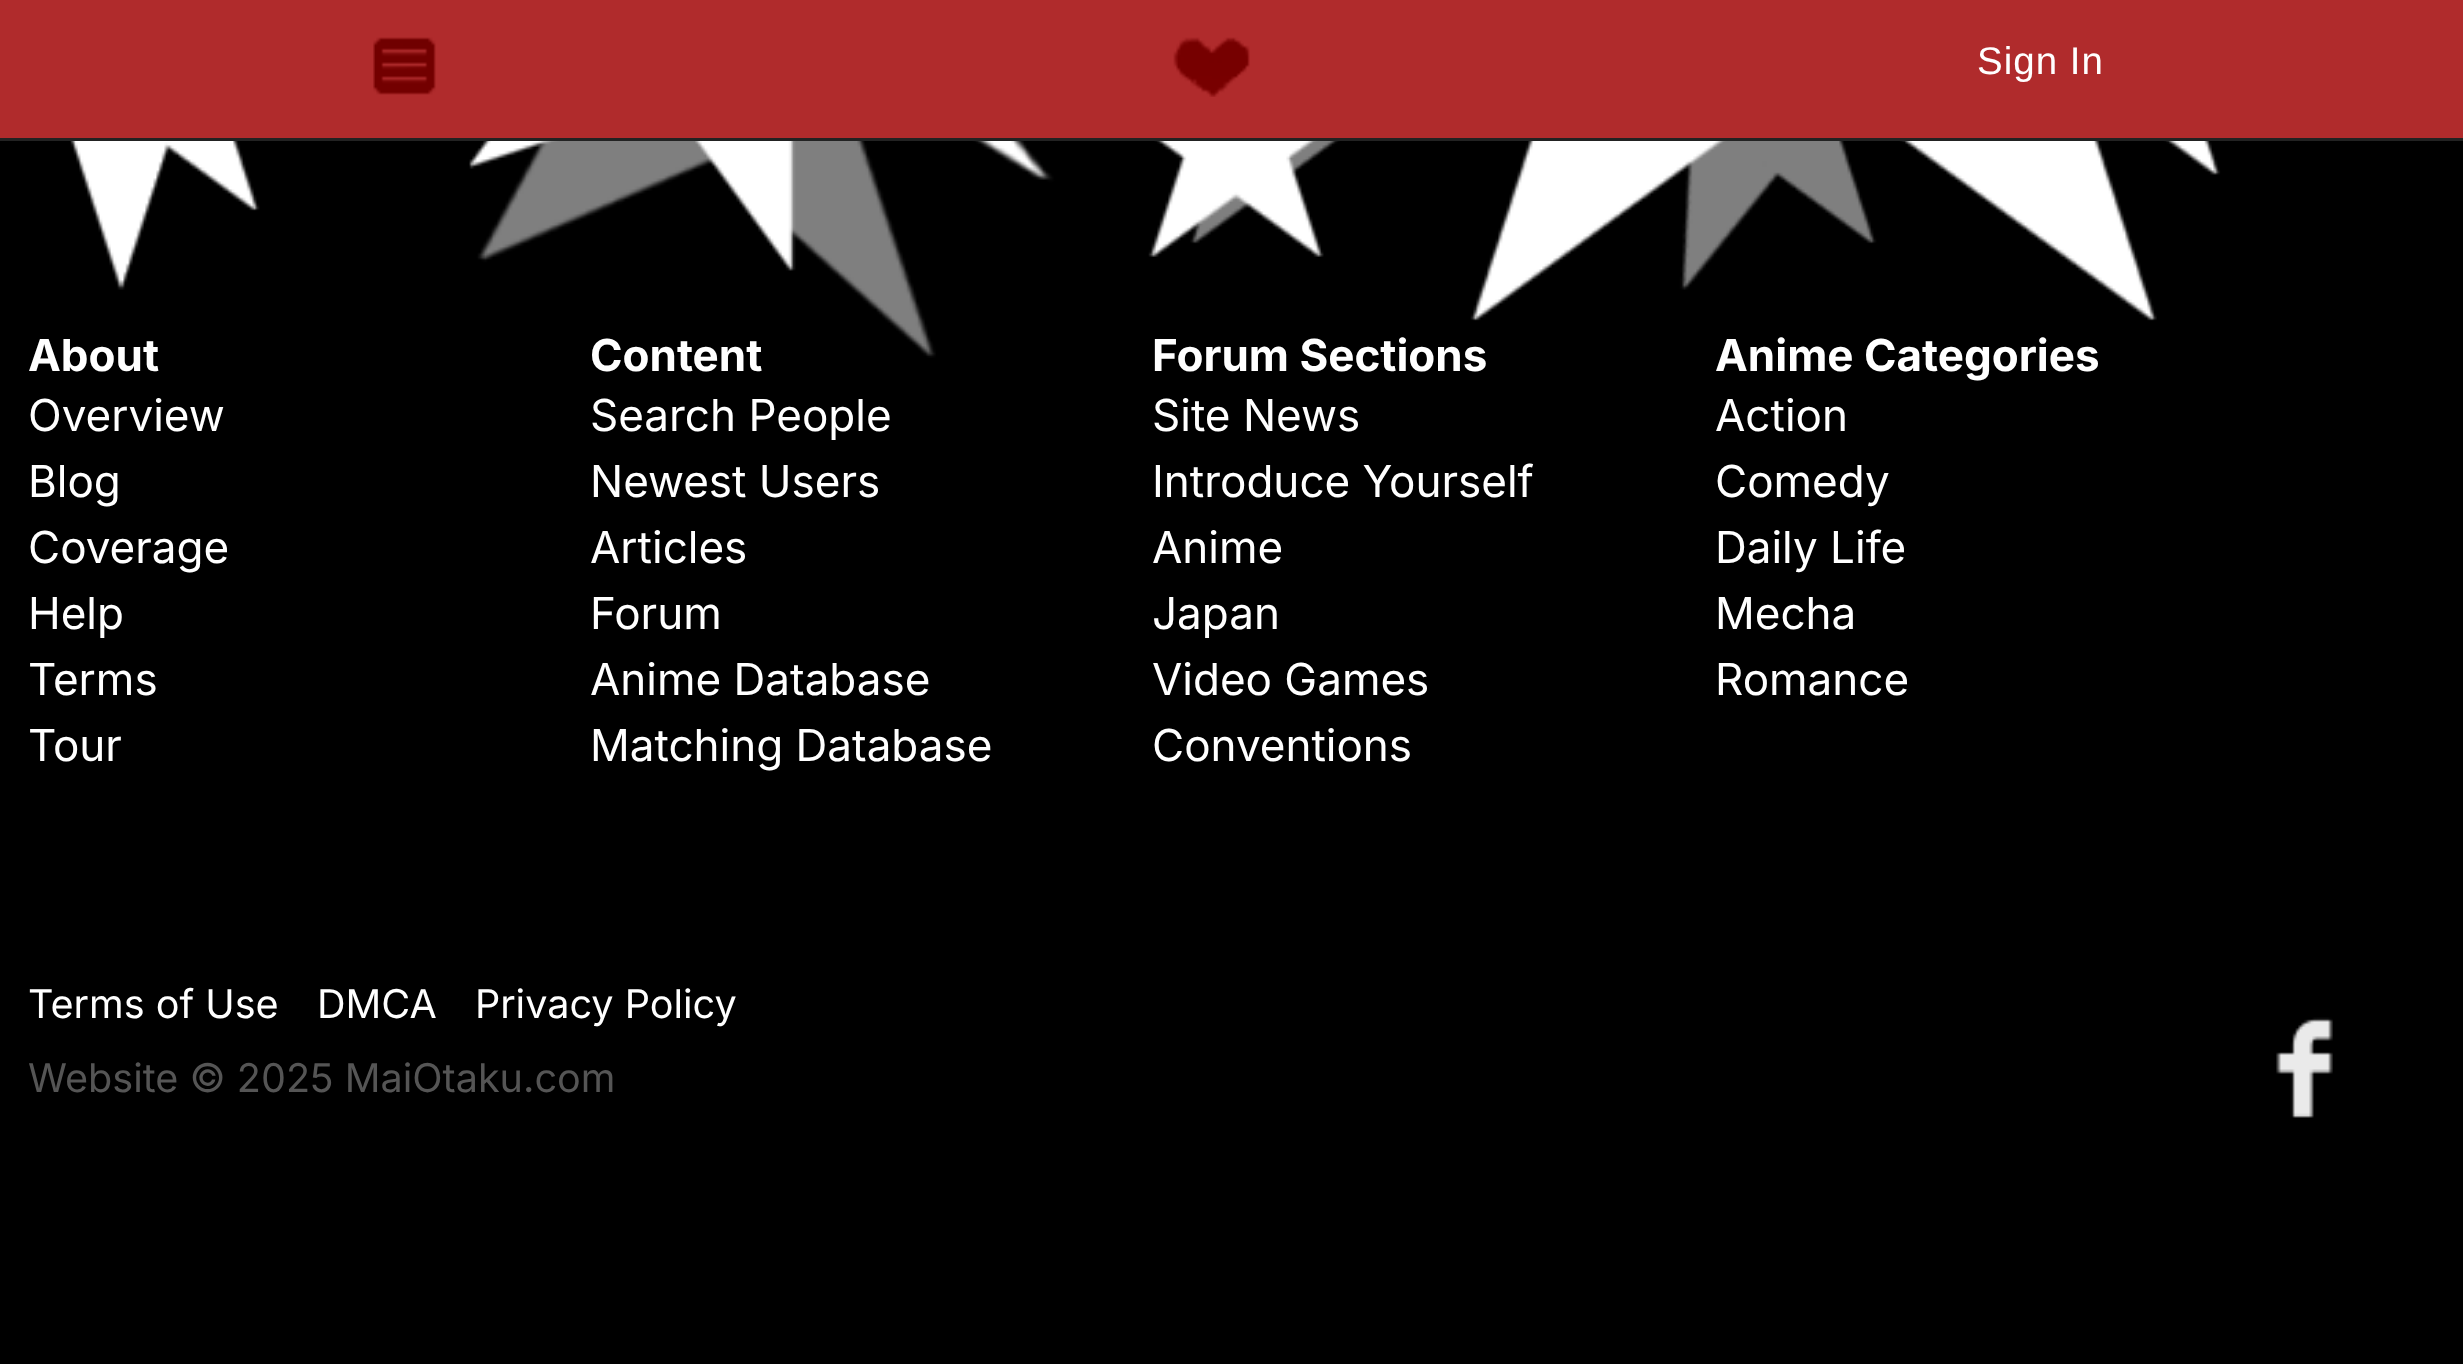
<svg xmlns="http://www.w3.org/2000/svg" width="2463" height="1364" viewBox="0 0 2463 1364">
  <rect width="100%" height="100%" fill="#000000"/>
  <rect x="0" y="0" width="2463" height="138" fill="#b02b2c"/>
  <rect x="0" y="138" width="2463" height="3" fill="#222222"/>
  <image x="373" y="37" width="63" height="58" href="img1.png"/>
  <image x="1173" y="37" width="77" height="60" href="img2.png"/>
  <text x="1977" y="74" font-family="Liberation Sans" font-size="38.5" letter-spacing="1" fill="#ffffff">Sign In</text>
  <image x="0" y="141" width="2463" height="217" href="img3.png"/>
  <text x="28" y="371" font-family="Inter" font-size="44" font-weight="bold" fill="#ffffff">About</text>
  <text x="28" y="431" font-family="Inter" font-size="44" fill="#ffffff">Overview</text>
  <text x="28" y="497" font-family="Inter" font-size="44" fill="#ffffff">Blog</text>
  <text x="28" y="563" font-family="Inter" font-size="44" fill="#ffffff">Coverage</text>
  <text x="28" y="629" font-family="Inter" font-size="44" fill="#ffffff">Help</text>
  <text x="28" y="695" font-family="Inter" font-size="44" fill="#ffffff">Terms</text>
  <text x="28" y="761" font-family="Inter" font-size="44" fill="#ffffff">Tour</text>
  <text x="590" y="371" font-family="Inter" font-size="44" font-weight="bold" fill="#ffffff">Content</text>
  <text x="590" y="431" font-family="Inter" font-size="44" fill="#ffffff">Search People</text>
  <text x="590" y="497" font-family="Inter" font-size="44" fill="#ffffff">Newest Users</text>
  <text x="590" y="563" font-family="Inter" font-size="44" fill="#ffffff">Articles</text>
  <text x="590" y="629" font-family="Inter" font-size="44" fill="#ffffff">Forum</text>
  <text x="590" y="695" font-family="Inter" font-size="44" fill="#ffffff">Anime Database</text>
  <text x="590" y="761" font-family="Inter" font-size="44" fill="#ffffff">Matching Database</text>
  <text x="1152" y="371" font-family="Inter" font-size="44" font-weight="bold" fill="#ffffff">Forum Sections</text>
  <text x="1152" y="431" font-family="Inter" font-size="44" fill="#ffffff">Site News</text>
  <text x="1152" y="497" font-family="Inter" font-size="44" fill="#ffffff">Introduce Yourself</text>
  <text x="1152" y="563" font-family="Inter" font-size="44" fill="#ffffff">Anime</text>
  <text x="1152" y="629" font-family="Inter" font-size="44" fill="#ffffff">Japan</text>
  <text x="1152" y="695" font-family="Inter" font-size="44" fill="#ffffff">Video Games</text>
  <text x="1152" y="761" font-family="Inter" font-size="44" fill="#ffffff">Conventions</text>
  <text x="1715" y="371" font-family="Inter" font-size="44" font-weight="bold" fill="#ffffff">Anime Categories</text>
  <text x="1715" y="431" font-family="Inter" font-size="44" fill="#ffffff">Action</text>
  <text x="1715" y="497" font-family="Inter" font-size="44" fill="#ffffff">Comedy</text>
  <text x="1715" y="563" font-family="Inter" font-size="44" fill="#ffffff">Daily Life</text>
  <text x="1715" y="629" font-family="Inter" font-size="44" fill="#ffffff">Mecha</text>
  <text x="1715" y="695" font-family="Inter" font-size="44" fill="#ffffff">Romance</text>
  <text x="28" y="1018" font-family="Inter" font-size="39.6" fill="#ffffff">Terms of Use</text>
  <text x="317" y="1018" font-family="Inter" font-size="39.6" fill="#ffffff">DMCA</text>
  <text x="475" y="1018" font-family="Inter" font-size="39.6" fill="#ffffff">Privacy Policy</text>
  <text x="28" y="1092" font-family="Inter" font-size="39.6" fill="#555555">Website © 2025 MaiOtaku.com</text>
  <image x="2276" y="1017" width="57" height="101" href="img4.png"/>
</svg>
